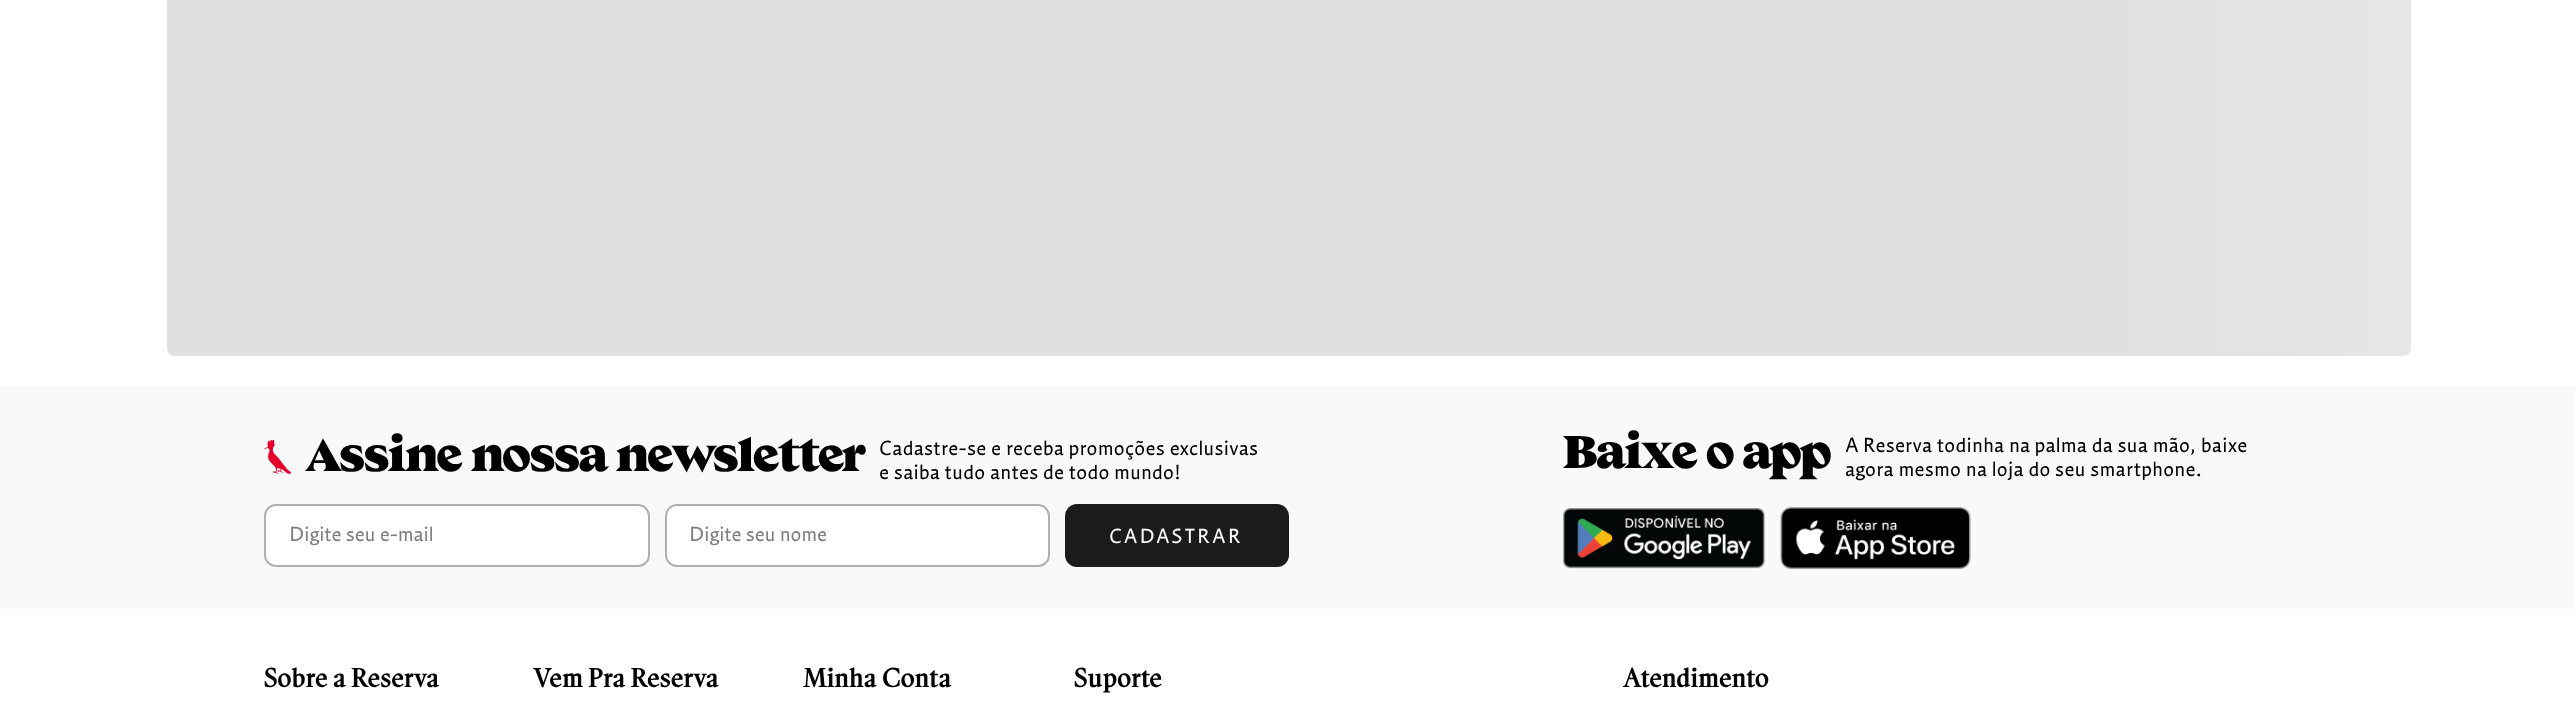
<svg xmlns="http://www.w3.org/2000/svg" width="2575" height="721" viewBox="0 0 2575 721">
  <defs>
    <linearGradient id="g1" gradientUnits="userSpaceOnUse" x1="167" y1="115" x2="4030" y2="115"><stop offset="0" stop-color="#e0e0e0"/><stop offset="0.5" stop-color="#e0e0e0"/><stop offset="0.6" stop-color="#e8e8e8"/><stop offset="0.65" stop-color="#e0e0e0"/><stop offset="1" stop-color="#e0e0e0"/></linearGradient>
  </defs>
  <rect width="100%" height="100%" fill="#ffffff"/>
  <rect x="167" y="-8" width="2244" height="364" rx="8" fill="url(#g1)"/>
  <rect x="0" y="386" width="2575" height="223" fill="#f9f9f9"/>
  <image x="264" y="440" width="27" height="34" href="img1.png"/>
  <text x="305" y="471" font-family="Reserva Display" font-size="48" letter-spacing="-2.4" fill="#000000">Assine nossa newsletter</text>
  <text x="879" y="455" font-family="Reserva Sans" font-size="21" letter-spacing="0.3" fill="#000000">Cadastre-se e receba promoções exclusivas</text>
  <text x="879" y="479" font-family="Reserva Sans" font-size="21" letter-spacing="0.3" fill="#000000">e saiba tudo antes de todo mundo!</text>
  <rect x="265" y="505" width="384" height="61" rx="11" fill="#ffffff" stroke="#b0b0b0" stroke-width="2"/>
  <text x="289" y="541" font-family="Reserva Sans" font-size="21" fill="#808080">Digite seu e-mail</text>
  <rect x="666" y="505" width="383" height="61" rx="11" fill="#ffffff" stroke="#b0b0b0" stroke-width="2"/>
  <text x="689" y="541" font-family="Reserva Sans" font-size="21" fill="#808080">Digite seu nome</text>
  <rect x="1065" y="504" width="224" height="63" rx="12" fill="#1b1b1b"/>
  <text x="1109" y="543" font-family="Reserva Sans" font-size="21" letter-spacing="2" fill="#ffffff">CADASTRAR</text>
  <text x="1562" y="468" font-family="Reserva Display" font-size="48" letter-spacing="-2.4" fill="#000000">Baixe o app</text>
  <text x="1845" y="452" font-family="Reserva Sans" font-size="21" letter-spacing="0.3" fill="#000000">A Reserva todinha na palma da sua mão, baixe</text>
  <text x="1845" y="476" font-family="Reserva Sans" font-size="21" letter-spacing="0.3" fill="#000000">agora mesmo na loja do seu smartphone.</text>
  <image x="1563" y="508" width="202" height="61" href="img2.png"/>
  <image x="1780" y="507" width="191" height="63" href="img3.png"/>
  <text x="263" y="687" font-family="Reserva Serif" font-size="27" font-weight="bold" fill="#000000">Sobre a Reserva</text>
  <text x="533" y="687" font-family="Reserva Serif" font-size="27" font-weight="bold" fill="#000000">Vem Pra Reserva</text>
  <text x="803" y="687" font-family="Reserva Serif" font-size="27" font-weight="bold" fill="#000000">Minha Conta</text>
  <text x="1073" y="687" font-family="Reserva Serif" font-size="27" font-weight="bold" fill="#000000">Suporte</text>
  <text x="1623" y="687" font-family="Reserva Serif" font-size="27" font-weight="bold" fill="#000000">Atendimento</text>
</svg>
